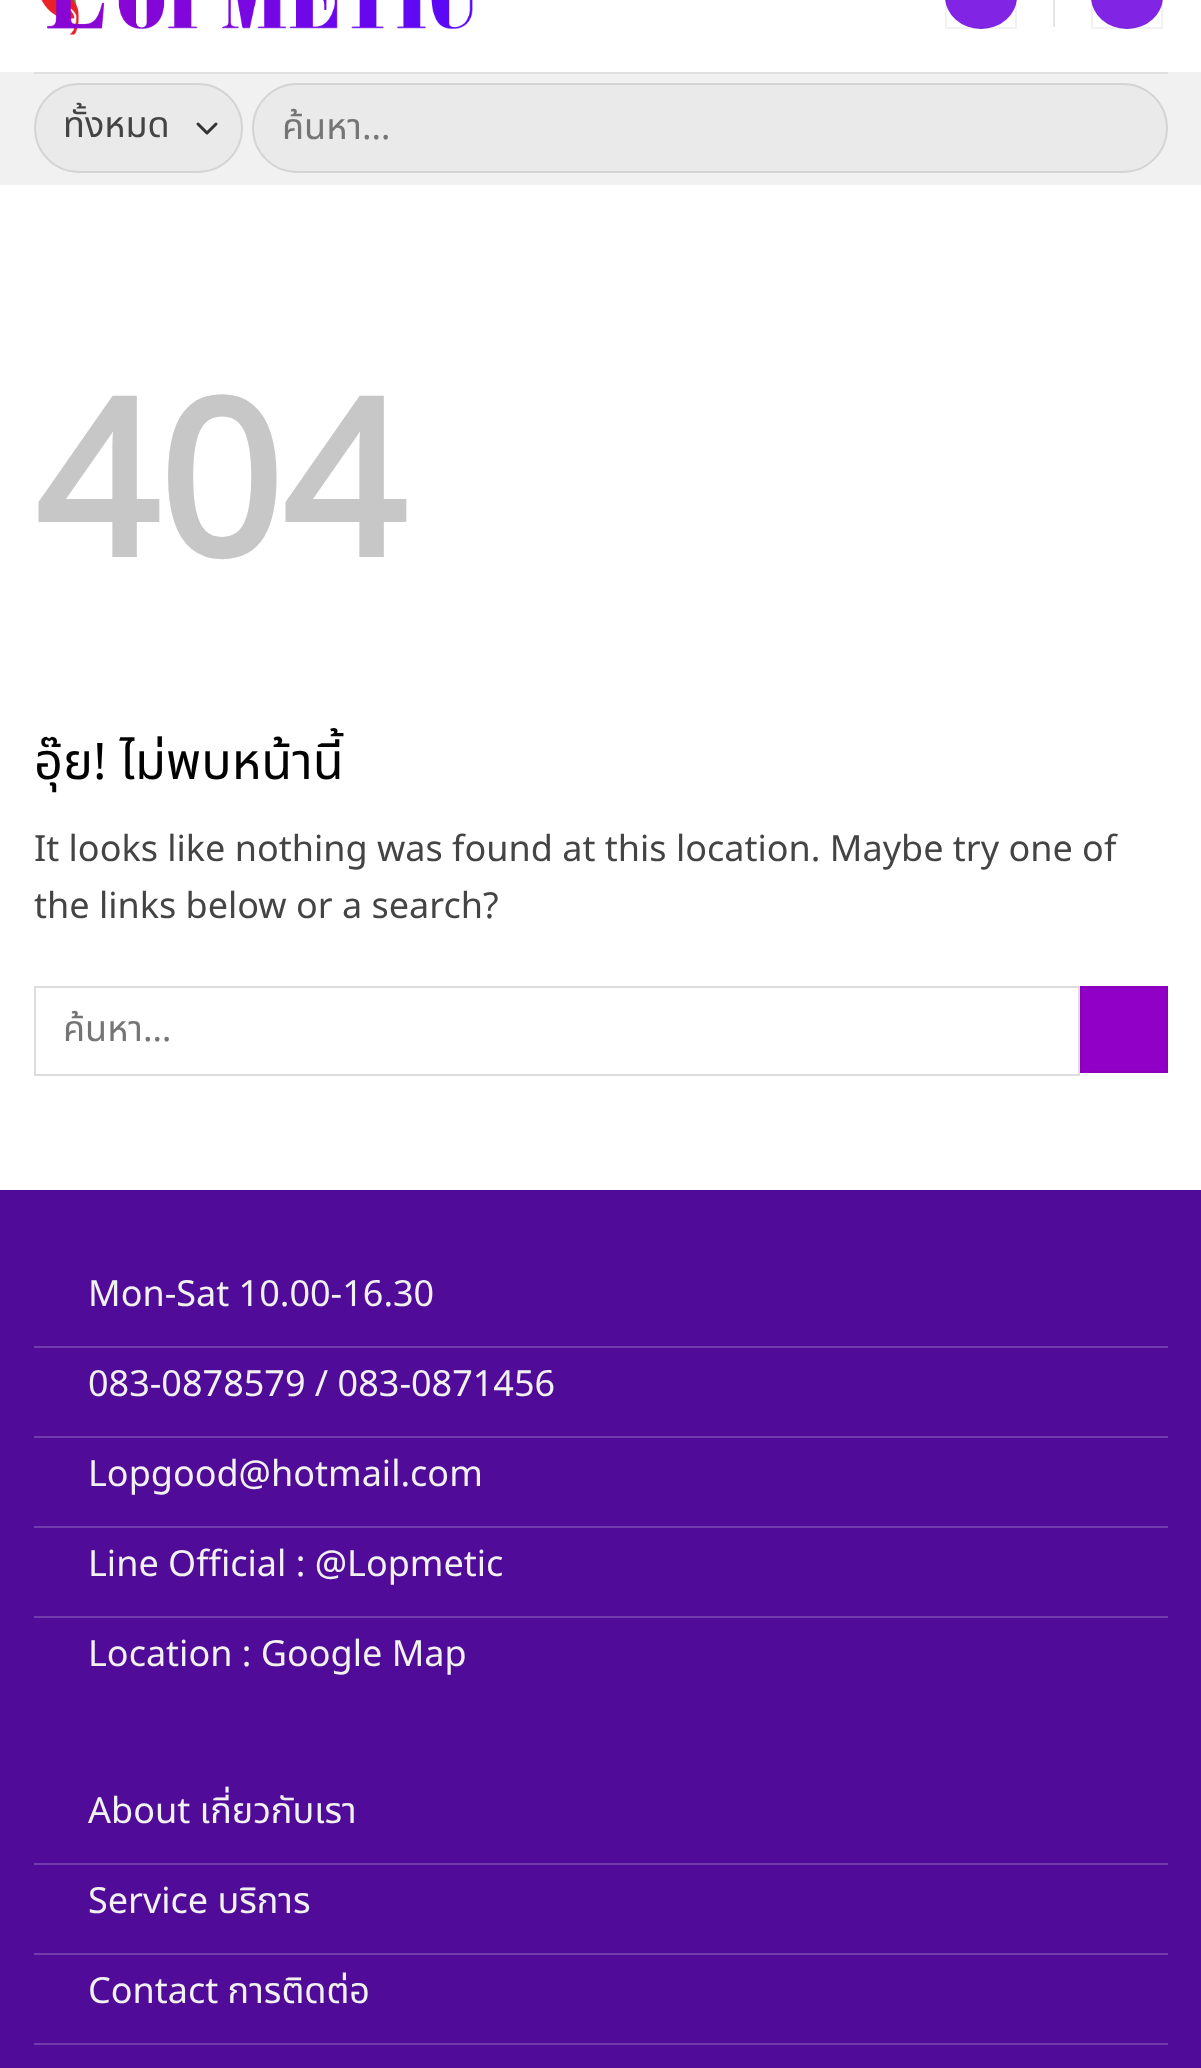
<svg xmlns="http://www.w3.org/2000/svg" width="1201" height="2068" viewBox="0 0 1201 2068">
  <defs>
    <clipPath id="clip1"><rect x="63" y="99" width="128" height="56"/></clipPath>
    <clipPath id="clip2"><rect x="281" y="101" width="849" height="54"/></clipPath>
    <clipPath id="clip3"><rect x="63" y="1004" width="979" height="54"/></clipPath>
  </defs>
  <rect width="100%" height="100%" fill="#ffffff"/>
  <image x="41" y="0" width="432" height="35" href="img1.png"/>
  <rect x="945" y="-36" width="72" height="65" rx="36" fill="#8224e3"/>
  <rect x="946" y="-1" width="70" height="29" fill="none" stroke="#000000" stroke-opacity="0.05" stroke-width="2"/>
  <rect x="1053" y="0" width="2" height="27" fill="#e6e6e6"/>
  <rect x="1091" y="-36" width="72" height="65" rx="36" fill="#8224e3"/>
  <rect x="1092" y="-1" width="70" height="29" fill="none" stroke="#000000" stroke-opacity="0.05" stroke-width="2"/>
  <rect x="0" y="72" width="1201" height="113" fill="#f1f1f1"/>
  <rect x="34" y="72" width="1134" height="2" fill="#e0e0e0"/>
  <rect x="34" y="83" width="209" height="90" rx="45" fill="#eaeaea"/>
  <path d="M198 124L207 133L216 124" fill="none" stroke="#333333" stroke-width="3" stroke-linecap="round" stroke-linejoin="round"/>
  <rect x="35" y="84" width="207" height="88" rx="44" fill="none" stroke="#000000" stroke-opacity="0.09" stroke-width="2"/>
  <g clip-path="url(#clip1)">
    <text x="63" y="137" font-family="Noto Sans Thai" font-size="36" fill="#444444">ทั้งหมด</text>
  </g>
  <rect x="252" y="83" width="916" height="90" rx="45" fill="#eaeaea"/>
  <rect x="253" y="84" width="914" height="88" rx="44" fill="none" stroke="#000000" stroke-opacity="0.09" stroke-width="2"/>
  <g clip-path="url(#clip2)">
    <text x="282" y="139" font-family="Noto Sans Thai" font-size="36" fill="#757575">ค้นหา…</text>
  </g>
  <text x="34" y="557" font-family="Noto Sans Thai" font-size="216" font-weight="bold" fill="#c7c7c7">404</text>
  <text x="34" y="779" font-family="Noto Sans Thai" font-size="50.5" fill="#020202">อุ๊ย! ไม่พบหน้านี้</text>
  <text x="34" y="861" font-family="Noto Sans Thai" font-size="36" fill="#444444">It looks like nothing was found at this location. Maybe try one of</text>
  <text x="34" y="918" font-family="Noto Sans Thai" font-size="36" fill="#444444">the links below or a search?</text>
  <rect x="35" y="987" width="1044" height="88" fill="none" stroke="#dddddd" stroke-width="2"/>
  <g clip-path="url(#clip3)">
    <text x="63" y="1041" font-family="Noto Sans Thai" font-size="36" fill="#757575">ค้นหา…</text>
  </g>
  <rect x="1081" y="987" width="86" height="85" fill="#9100c6" stroke="#8a00bc" stroke-width="2"/>
  <rect x="0" y="1190" width="1201" height="878" fill="#500b98"/>
  <rect x="34" y="1346" width="1134" height="2" fill="#733cad"/>
  <text x="88" y="1306" font-family="Noto Sans Thai" font-size="36" fill="#f1f1f1">Mon-Sat 10.00-16.30</text>
  <rect x="34" y="1436" width="1134" height="2" fill="#733cad"/>
  <text x="88" y="1396" font-family="Noto Sans Thai" font-size="36" fill="#f1f1f1">083-0878579 / 083-0871456</text>
  <rect x="34" y="1526" width="1134" height="2" fill="#733cad"/>
  <text x="88" y="1486" font-family="Noto Sans Thai" font-size="36" fill="#f1f1f1">Lopgood@hotmail.com</text>
  <rect x="34" y="1616" width="1134" height="2" fill="#733cad"/>
  <text x="88" y="1576" font-family="Noto Sans Thai" font-size="36" fill="#f1f1f1">Line Official : @Lopmetic</text>
  <text x="88" y="1666" font-family="Noto Sans Thai" font-size="36" fill="#f1f1f1">Location : Google Map</text>
  <rect x="34" y="1863" width="1134" height="2" fill="#733cad"/>
  <text x="88" y="1823" font-family="Noto Sans Thai" font-size="36" fill="#f1f1f1">About เกี่ยวกับเรา</text>
  <rect x="34" y="1953" width="1134" height="2" fill="#733cad"/>
  <text x="88" y="1913" font-family="Noto Sans Thai" font-size="36" fill="#f1f1f1">Service บริการ</text>
  <rect x="34" y="2043" width="1134" height="2" fill="#733cad"/>
  <text x="88" y="2003" font-family="Noto Sans Thai" font-size="36" fill="#f1f1f1">Contact การติดต่อ</text>
</svg>
